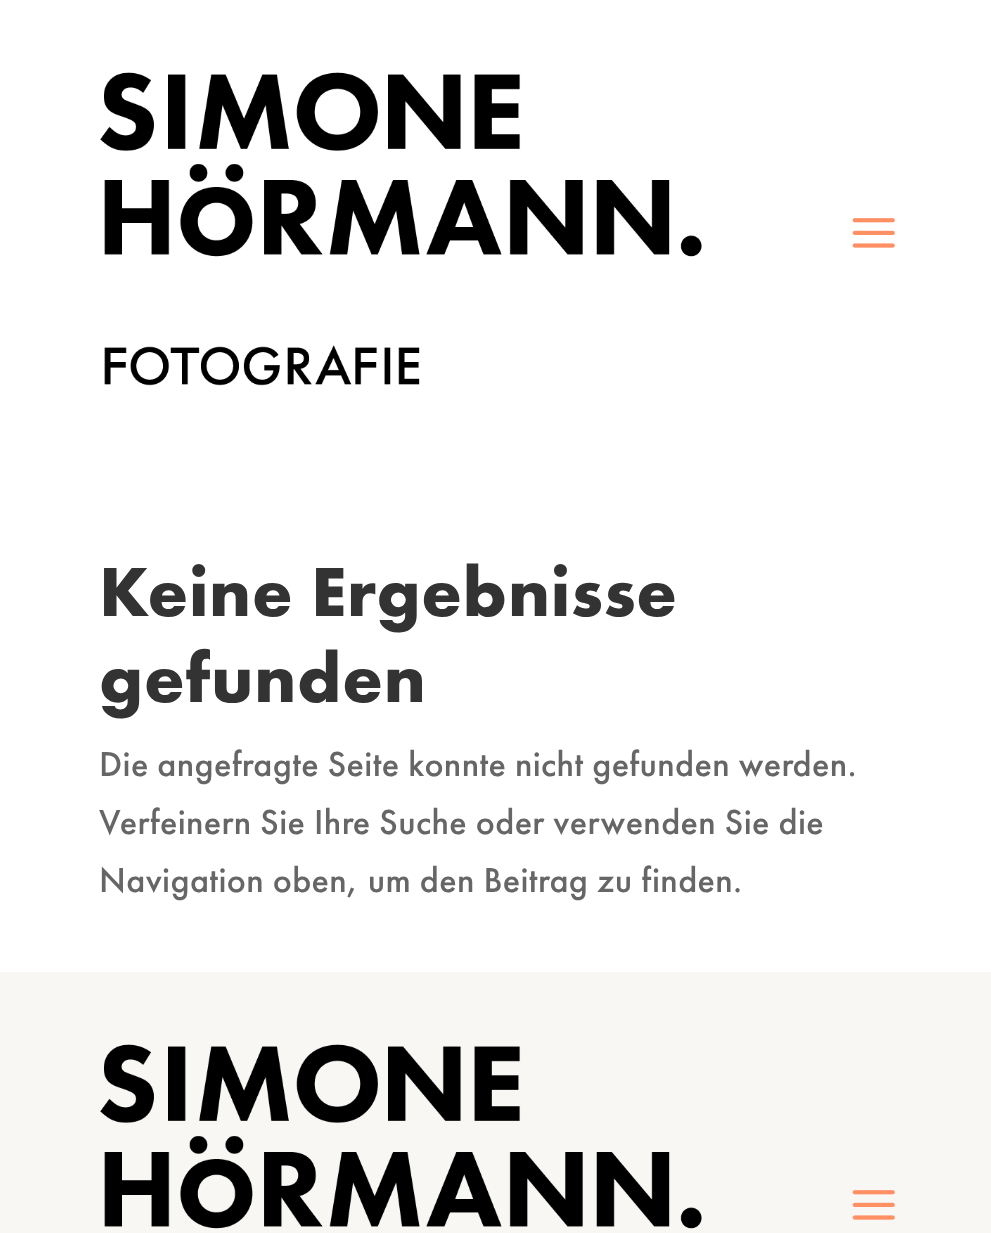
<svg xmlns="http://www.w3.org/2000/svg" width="991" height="1233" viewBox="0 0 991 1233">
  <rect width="100%" height="100%" fill="#ffffff"/>
  <image x="100" y="72" width="602" height="314" href="img1.png"/>
  <image x="852" y="218" width="43" height="30" href="img2.png"/>
  <text x="99" y="616" font-family="Futura PT" font-size="72" font-weight="bold" letter-spacing="0.75" fill="#333333">Keine Ergebnisse</text>
  <text x="99" y="702" font-family="Futura PT" font-size="72" font-weight="bold" letter-spacing="0.75" fill="#333333">gefunden</text>
  <text x="99" y="776" font-family="Futura PT" font-size="36" font-weight="500" letter-spacing="0.35" fill="#666666">Die angefragte Seite konnte nicht gefunden werden.</text>
  <text x="99" y="834" font-family="Futura PT" font-size="36" font-weight="500" letter-spacing="0.35" fill="#666666">Verfeinern Sie Ihre Suche oder verwenden Sie die</text>
  <text x="99" y="892" font-family="Futura PT" font-size="36" font-weight="500" letter-spacing="0.35" fill="#666666">Navigation oben, um den Beitrag zu finden.</text>
  <rect x="0" y="972" width="991" height="261" fill="#f9f7f4"/>
  <image x="100" y="1044" width="602" height="185" href="img3.png"/>
  <image x="852" y="1190" width="43" height="30" href="img4.png"/>
</svg>
